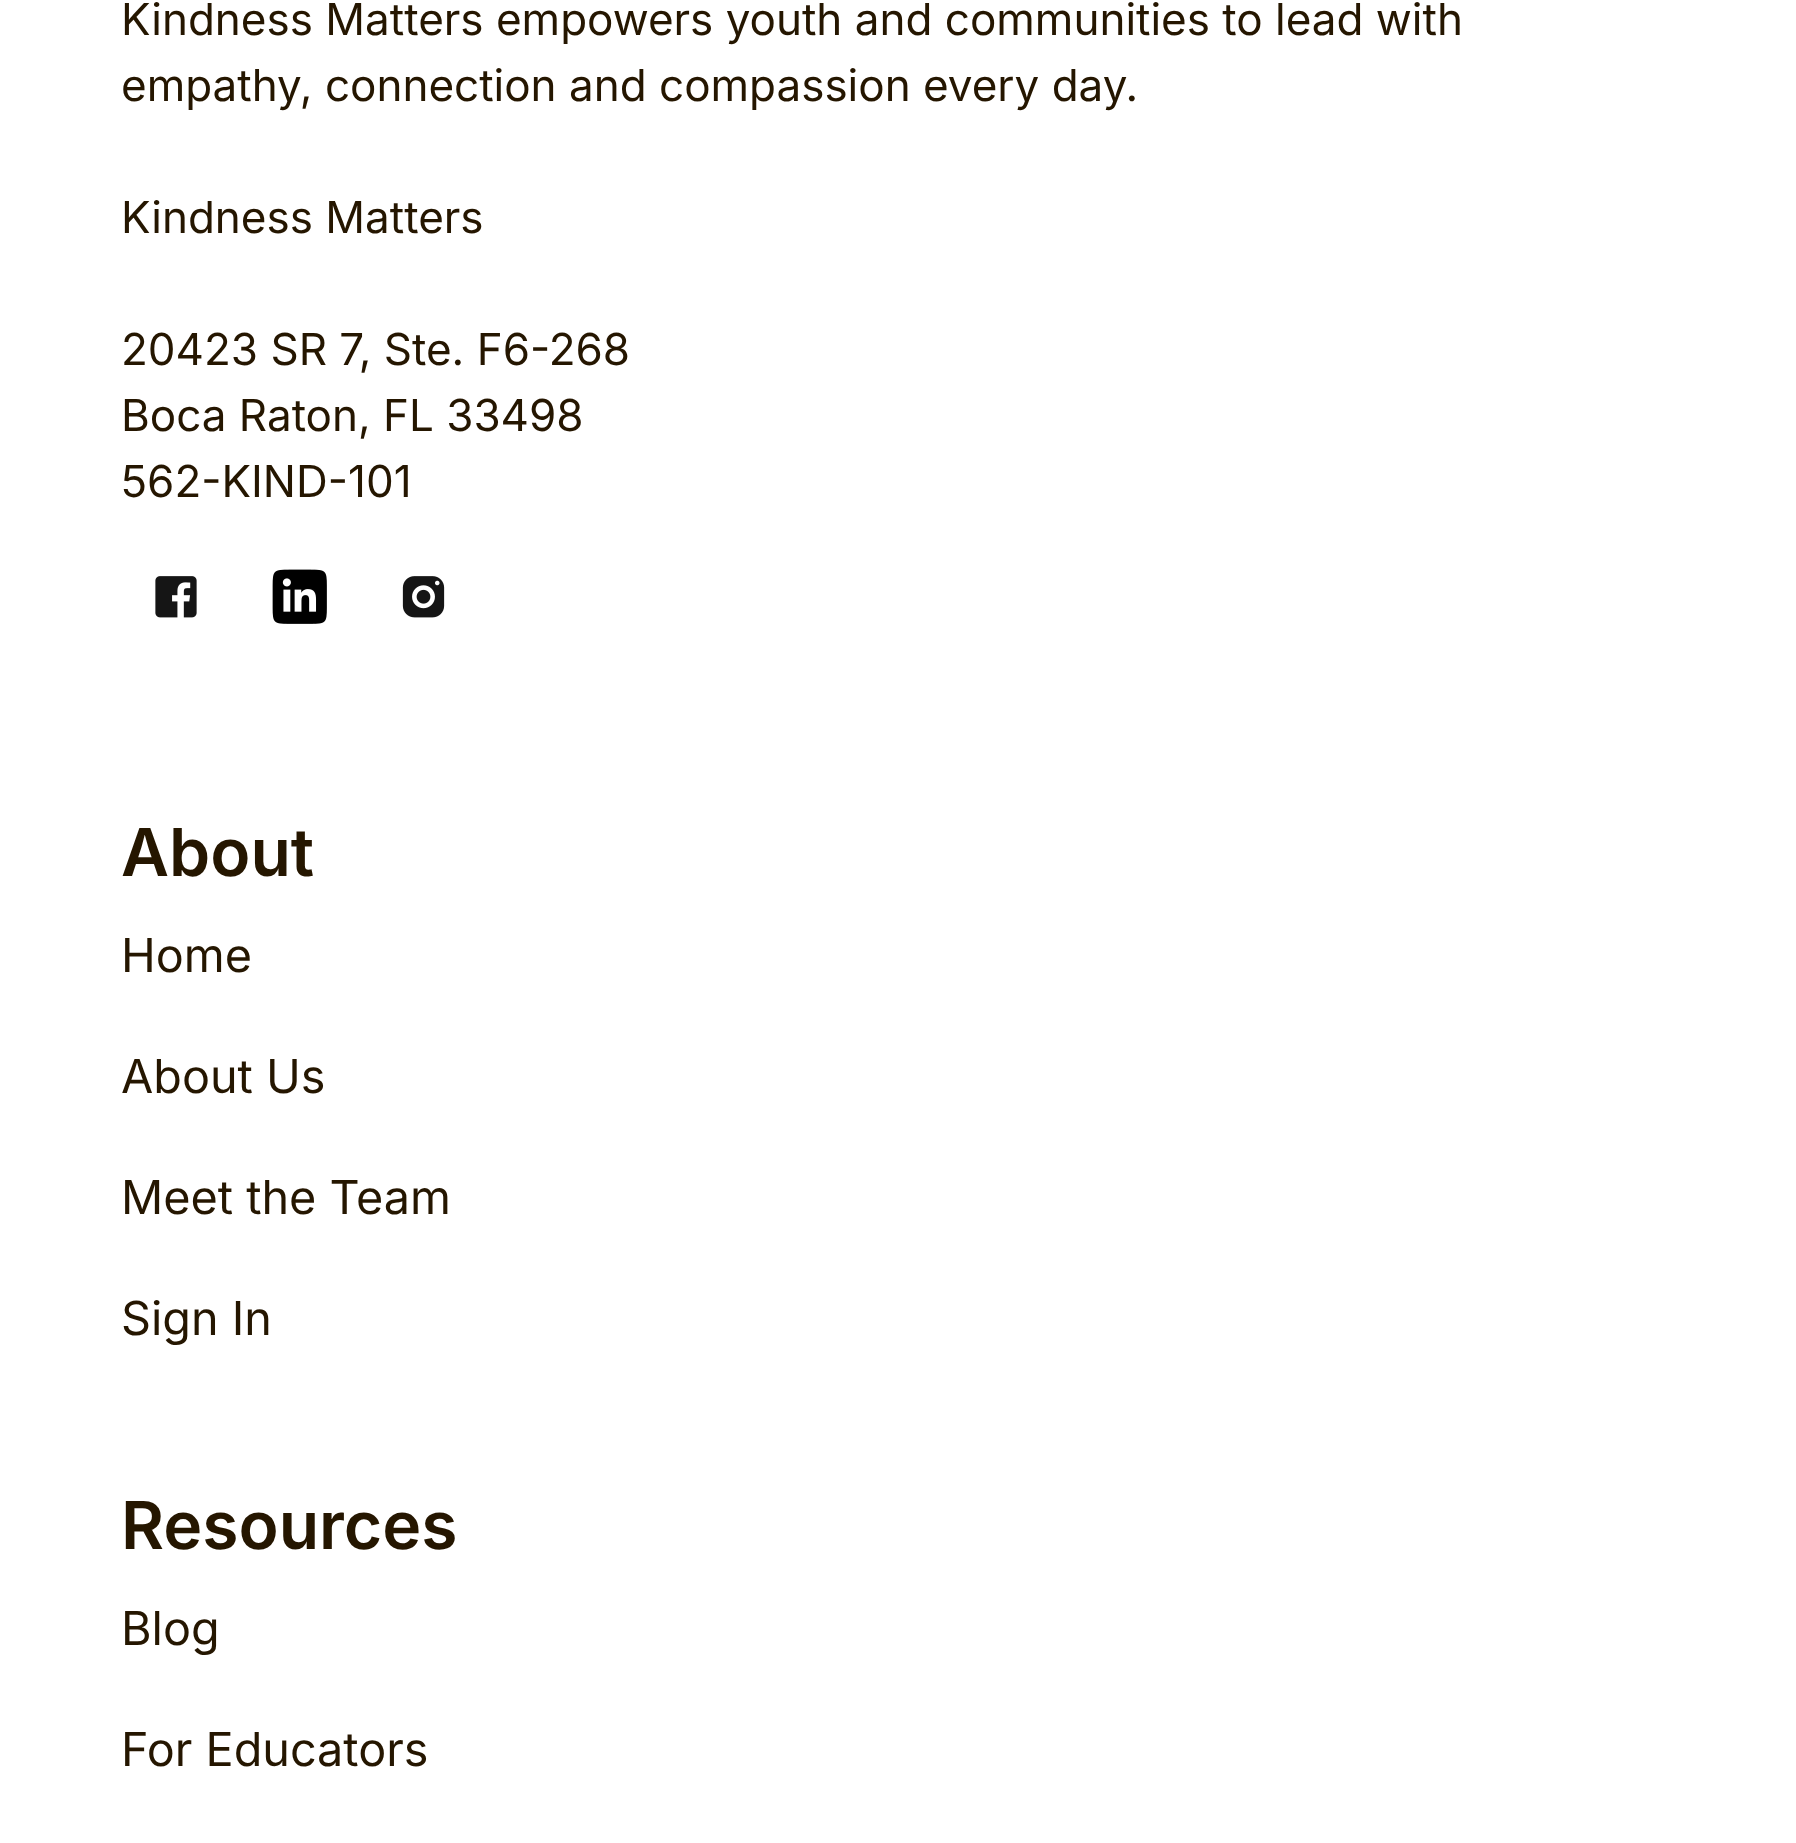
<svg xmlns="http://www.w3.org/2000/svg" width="1796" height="1843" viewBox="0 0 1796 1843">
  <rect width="100%" height="100%" fill="#ffffff"/>
  <text x="121" y="35" font-family="Inter" font-size="44" fill="#251600">Kindness Matters empowers youth and communities to lead with</text>
  <text x="121" y="101" font-family="Inter" font-size="44" fill="#251600">empathy, connection and compassion every day.</text>
  <text x="121" y="233" font-family="Inter" font-size="44" fill="#251600">Kindness Matters</text>
  <text x="121" y="365" font-family="Inter" font-size="44" fill="#251600">20423 SR 7, Ste. F6-268</text>
  <text x="121" y="431" font-family="Inter" font-size="44" fill="#251600">Boca Raton, FL 33498</text>
  <text x="121" y="497" font-family="Inter" font-size="44" fill="#251600">562-KIND-101</text>
  <image x="155" y="576" width="42" height="42" href="img1.png"/>
  <image x="272" y="569" width="55" height="55" href="img2.png"/>
  <image x="402" y="576" width="43" height="42" href="img3.png"/>
  <text x="121" y="876" font-family="Inter" font-size="66" font-weight="600" fill="#251600">About</text>
  <text x="121" y="972" font-family="Inter" font-size="46.75" fill="#251600">Home</text>
  <text x="121" y="1093" font-family="Inter" font-size="46.75" fill="#251600">About Us</text>
  <text x="121" y="1214" font-family="Inter" font-size="46.75" fill="#251600">Meet the Team</text>
  <text x="121" y="1335" font-family="Inter" font-size="46.75" fill="#251600">Sign In</text>
  <text x="121" y="1549" font-family="Inter" font-size="66" font-weight="600" fill="#251600">Resources</text>
  <text x="121" y="1645" font-family="Inter" font-size="46.75" fill="#251600">Blog</text>
  <text x="121" y="1766" font-family="Inter" font-size="46.75" fill="#251600">For Educators</text>
</svg>
